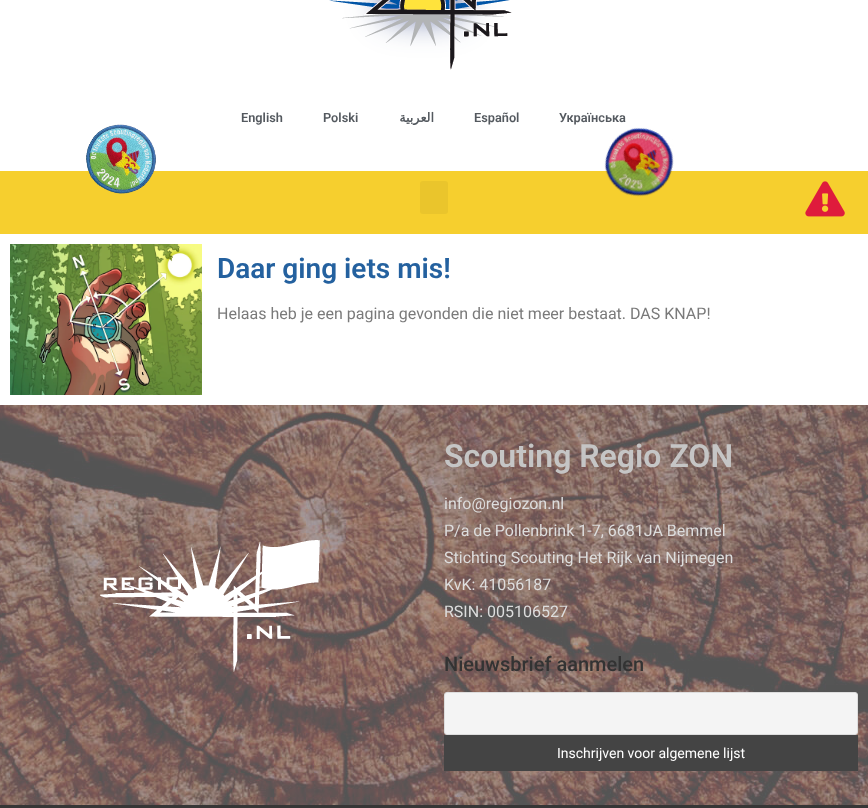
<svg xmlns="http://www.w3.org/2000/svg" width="868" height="808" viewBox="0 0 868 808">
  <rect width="100%" height="100%" fill="#ffffff"/>
  <image x="329" y="0" width="183" height="70" href="img1.png"/>
  <text x="241" y="122" font-family="Roboto" font-size="12.75" font-weight="600" fill="#54595f">English</text>
  <text x="323" y="122" font-family="Roboto" font-size="12.75" font-weight="600" fill="#54595f">Polski</text>
  <text x="434" y="122" font-family="DejaVu Sans" font-size="12.75" font-weight="bold" direction="rtl" fill="#54595f">العربية</text>
  <text x="474" y="122" font-family="Roboto" font-size="12.75" font-weight="600" fill="#54595f">Español</text>
  <text x="559" y="122" font-family="Roboto" font-size="12.75" font-weight="600" fill="#54595f">Українська</text>
  <rect x="0" y="171" width="868" height="63" fill="#f6cf2e"/>
  <image x="86" y="124" width="70" height="70" href="img2.png"/>
  <image x="604" y="127" width="70" height="70" href="img3.png"/>
  <rect x="420" y="181" width="28" height="33" rx="3" fill="#eac52c"/>
  <image x="805" y="181" width="40" height="36" href="img4.png"/>
  <image x="10" y="244" width="192" height="151" href="img5.png"/>
  <text x="217" y="278" font-family="Roboto" font-size="28" font-weight="600" fill="#24619f">Daar ging iets mis!</text>
  <text x="217" y="319" font-family="Roboto" font-size="16" fill="#7a7a7a">Helaas heb je een pagina gevonden die niet meer bestaat. DAS KNAP!</text>
  <image x="0" y="405" width="868" height="400" href="img6.png"/>
  <image x="100" y="540" width="220" height="132" href="img7.png"/>
  <text x="444" y="467" font-family="Roboto" font-size="32" font-weight="600" fill="#c5c5c5">Scouting Regio ZON</text>
  <text x="444" y="509" font-family="Roboto" font-size="16" fill="#dddddd">info@regiozon.nl</text>
  <text x="444" y="536" font-family="Roboto" font-size="16" fill="#dddddd">P/a de Pollenbrink 1-7, 6681JA Bemmel</text>
  <text x="444" y="563" font-family="Roboto" font-size="16" fill="#dddddd">Stichting Scouting Het Rijk van Nijmegen</text>
  <text x="444" y="590" font-family="Roboto" font-size="16" fill="#dddddd">KvK: 41056187</text>
  <text x="444" y="617" font-family="Roboto" font-size="16" fill="#dddddd">RSIN: 005106527</text>
  <text x="444" y="671" font-family="Roboto" font-size="20" font-weight="500" fill="#333333">Nieuwsbrief aanmelen</text>
  <rect x="444.5" y="692.5" width="413" height="42" rx="2.5" fill="#f4f4f4" stroke="#dddddd"/>
  <rect x="444" y="735" width="414" height="36" fill="#444444"/>
  <text x="557" y="758" font-family="Roboto" font-size="14" fill="#ffffff">Inschrijven voor algemene lijst</text>
  <rect x="0" y="805" width="868" height="3" fill="#363636"/>
</svg>
